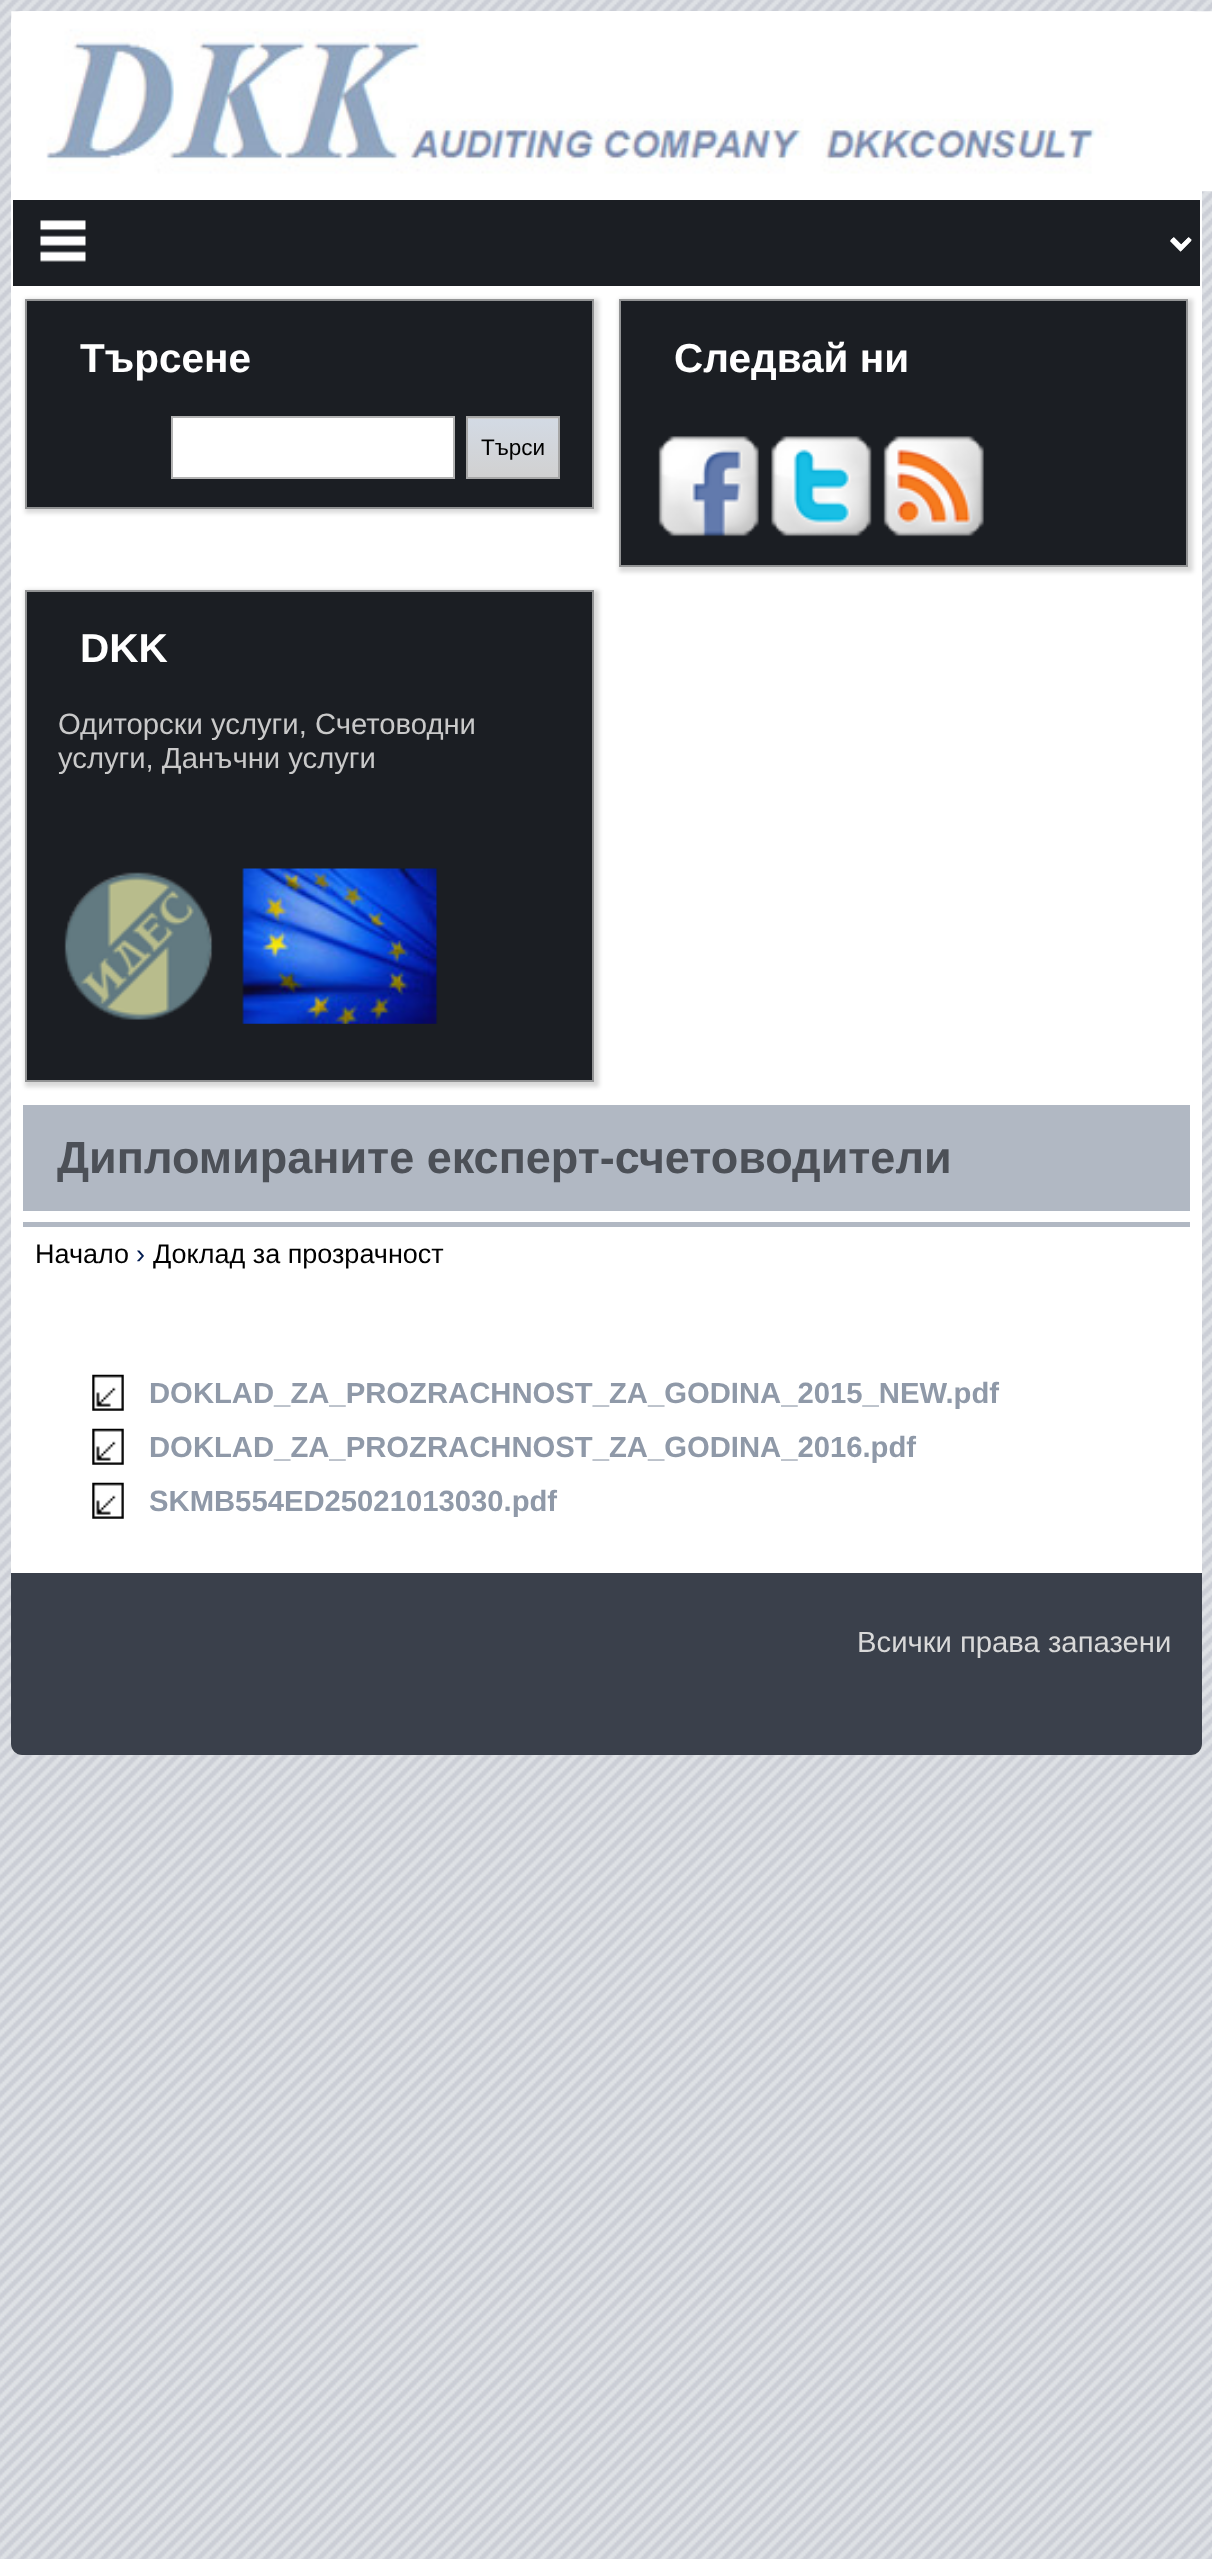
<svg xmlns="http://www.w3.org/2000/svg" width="1212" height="2559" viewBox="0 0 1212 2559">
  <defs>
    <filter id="blur1" x="-50%" y="-200%" width="200%" height="500%"><feGaussianBlur stdDeviation="2"/></filter>
    <linearGradient id="g1" gradientUnits="userSpaceOnUse" x1="513" y1="360" x2="513" y2="419"><stop offset="0" stop-color="#d3dae4"/><stop offset="1" stop-color="#d1d1d1"/></linearGradient>
    <linearGradient id="g2" gradientUnits="userSpaceOnUse" x1="513" y1="419" x2="513" y2="477"><stop offset="0" stop-color="#d3dae4"/><stop offset="1" stop-color="#d1d1d1"/></linearGradient>
  </defs>
  <rect width="100%" height="100%" fill="#dadde2"/>
  <image x="0" y="0" width="1212" height="2559" href="img1.png"/>
  <rect x="11" y="11" width="1191" height="1744" rx="11" fill="#ffffff"/>
  <image x="11" y="11" width="1201" height="181" href="img2.png"/>
  <rect x="13" y="200" width="1187" height="86" fill="#1b1e23"/>
  <image x="40" y="220" width="1152" height="42" href="img3.png"/>
  <path d="M1171.5 239.5L1180.5 248.5L1189.5 239.5" fill="none" stroke="#ffffff" stroke-width="4.5"/>
  <rect x="25" y="299" width="574" height="214" fill="#000000" fill-opacity="0.15" filter="url(#blur1)"/>
  <rect x="26" y="300" width="567" height="208" fill="#1b1e23" stroke="#929394" stroke-width="2"/>
  <text x="80" y="372" font-family="Liberation Sans" font-size="40.5" font-weight="bold" fill="#ffffff">Търсене</text>
  <rect x="172" y="417" width="282" height="61" fill="#ffffff" stroke="#b3b3b3" stroke-width="2"/>
  <rect x="466" y="418" width="94" height="1" fill="url(#g1)"/>
  <rect x="468" y="419" width="90" height="58" fill="url(#g2)"/>
  <rect x="467" y="417" width="92" height="61" fill="none" stroke="#a7a7a7" stroke-width="2"/>
  <text x="481" y="455" font-family="Liberation Sans" font-size="22.5" fill="#000000">Търси</text>
  <rect x="619" y="299" width="574" height="273" fill="#000000" fill-opacity="0.15" filter="url(#blur1)"/>
  <rect x="620" y="300" width="567" height="266" fill="#1b1e23" stroke="#929394" stroke-width="2"/>
  <text x="674" y="372" font-family="Liberation Sans" font-size="40.5" font-weight="bold" fill="#ffffff">Следвай ни</text>
  <image x="658" y="436" width="101" height="101" href="img4.png"/>
  <image x="771" y="436" width="101" height="101" href="img5.png"/>
  <image x="883" y="436" width="101" height="101" href="img6.png"/>
  <rect x="25" y="590" width="574" height="497" fill="#000000" fill-opacity="0.15" filter="url(#blur1)"/>
  <rect x="26" y="591" width="567" height="490" fill="#1b1e23" stroke="#929394" stroke-width="2"/>
  <text x="80" y="662" font-family="Liberation Sans" font-size="40.5" font-weight="bold" fill="#ffffff">DKK</text>
  <text x="58" y="734" font-family="Liberation Sans" font-size="29.25" fill="#c9c9c9">Одиторски услуги, Счетоводни</text>
  <text x="58" y="768" font-family="Liberation Sans" font-size="29.25" fill="#c9c9c9">услуги, Данъчни услуги</text>
  <image x="64" y="868" width="374" height="156" href="img7.png"/>
  <rect x="23" y="1105" width="1167" height="106" fill="#b1b8c3"/>
  <text x="57" y="1173" font-family="Liberation Sans" font-size="45" font-weight="bold" fill="#4c5057">Дипломираните експерт-счетоводители</text>
  <rect x="23" y="1222" width="1167" height="5" fill="#b1b8c3"/>
  <text x="35" y="1263" font-family="Liberation Sans" font-size="27" fill="#000000">Начало</text>
  <text x="136" y="1263" font-family="Liberation Sans" font-size="27" fill="#001a4f">›</text>
  <text x="153" y="1263" font-family="Liberation Sans" font-size="27" fill="#000000">Доклад за прозрачност</text>
  <image x="92" y="1374" width="32" height="37" href="img8.png"/>
  <text x="149" y="1403" font-family="Liberation Sans" font-size="29.25" font-weight="bold" fill="#8f99a8">DOKLAD_ZA_PROZRACHNOST_ZA_GODINA_2015_NEW.pdf</text>
  <image x="92" y="1428" width="32" height="37" href="img8.png"/>
  <text x="149" y="1457" font-family="Liberation Sans" font-size="29.25" font-weight="bold" fill="#8f99a8">DOKLAD_ZA_PROZRACHNOST_ZA_GODINA_2016.pdf</text>
  <image x="92" y="1482" width="32" height="37" href="img8.png"/>
  <text x="149" y="1511" font-family="Liberation Sans" font-size="29.25" font-weight="bold" fill="#8f99a8">SKMB554ED25021013030.pdf</text>
  <path d="M11 1573H1202V1744C1202 1750 1197 1755 1191 1755H22C16 1755 11 1750 11 1744Z" fill="#3a404b"/>
  <text x="857" y="1652" font-family="Liberation Sans" font-size="29.25" fill="#d9d9d9">Всички права запазени</text>
</svg>
